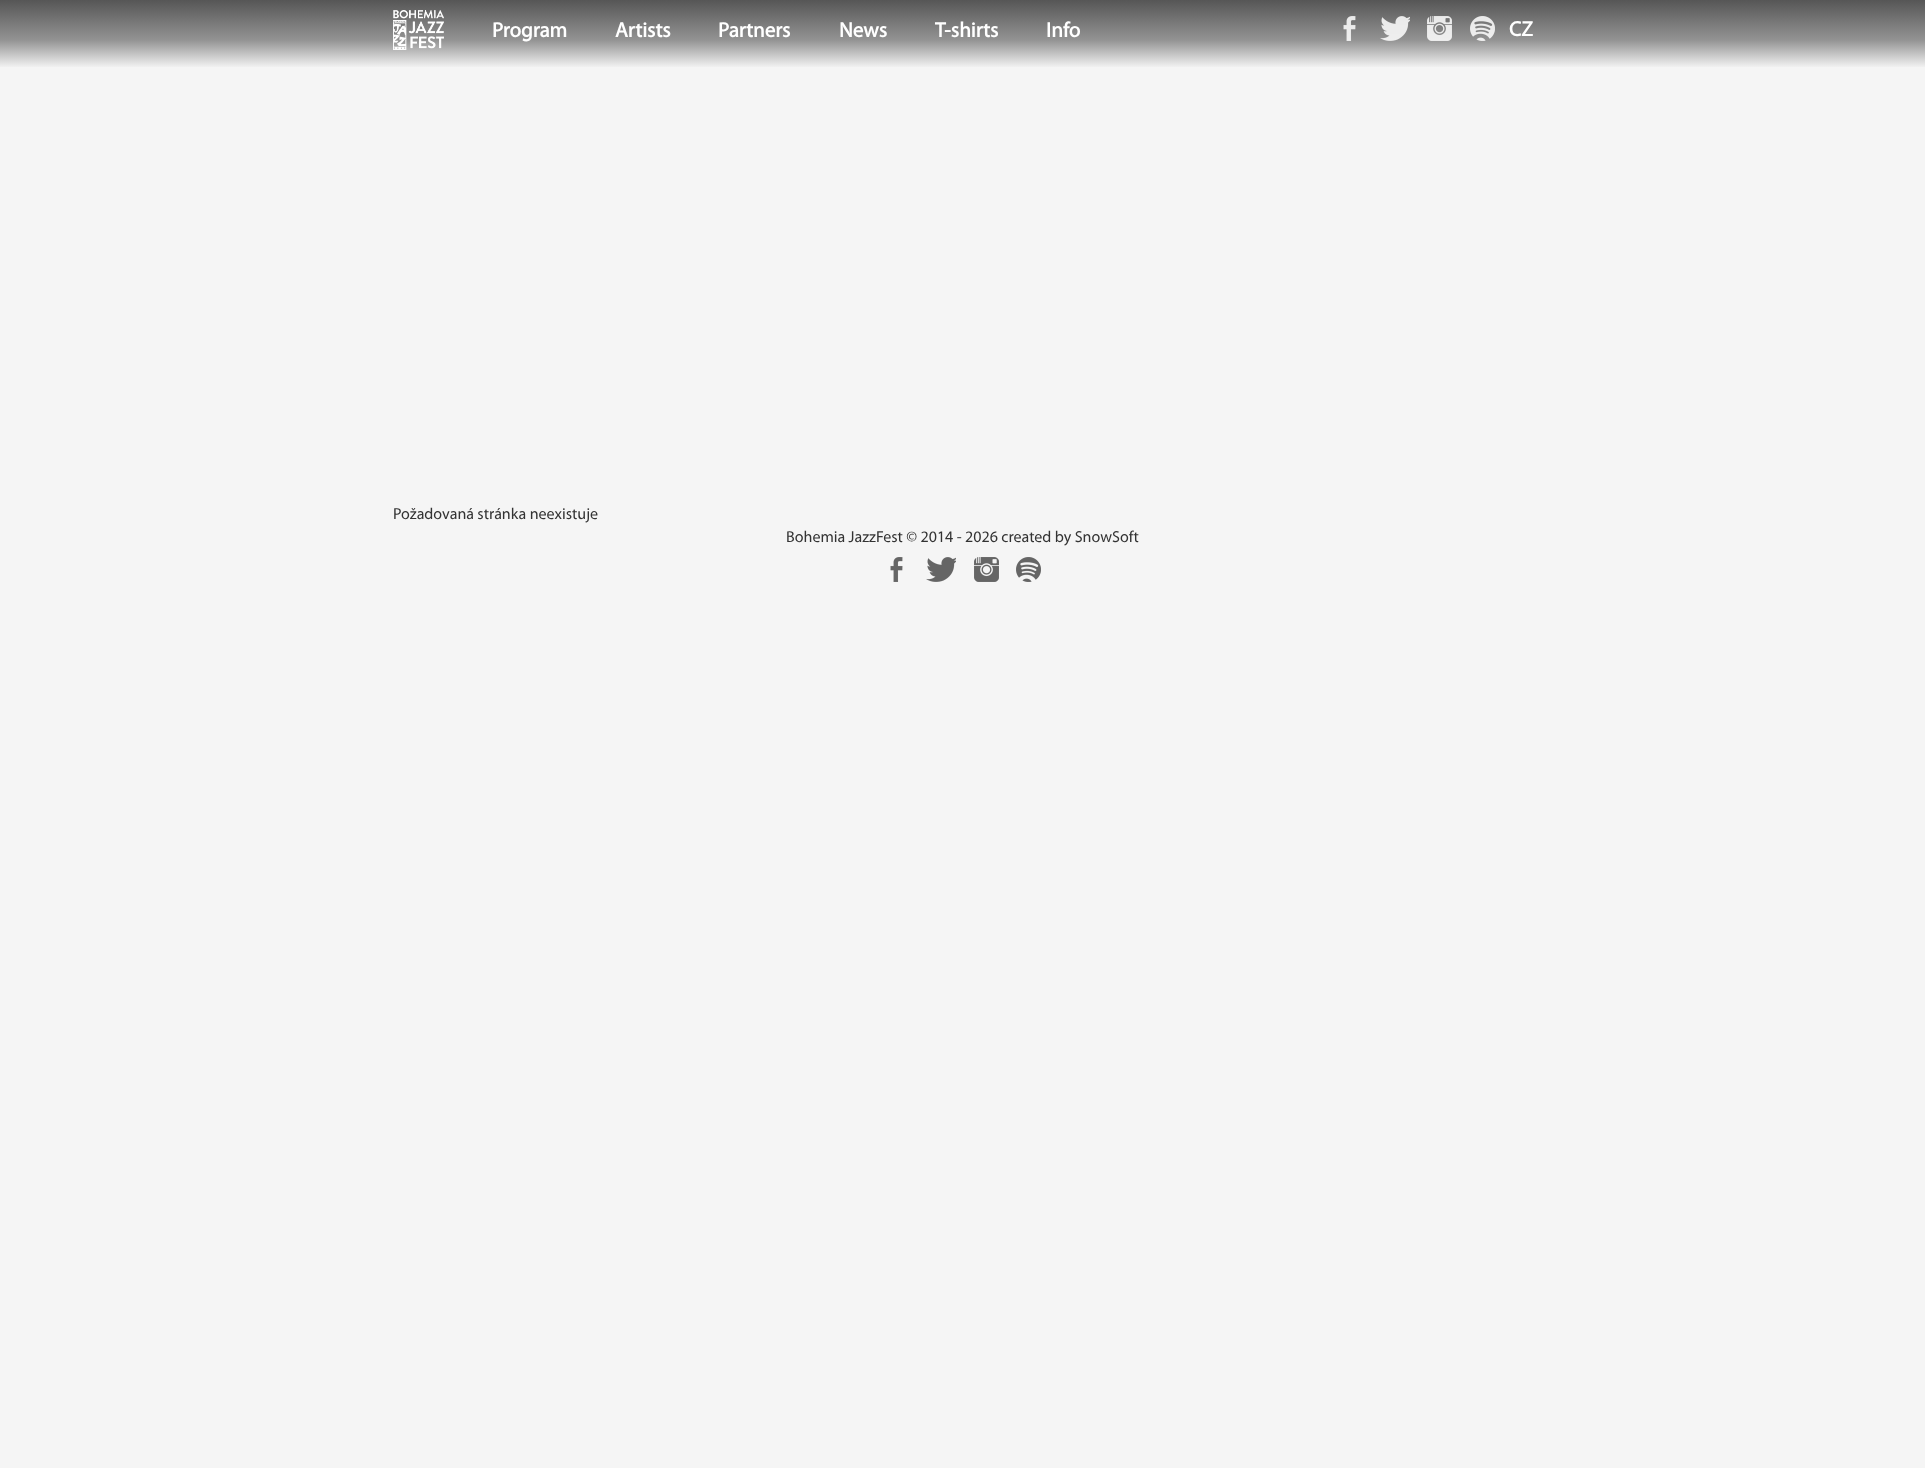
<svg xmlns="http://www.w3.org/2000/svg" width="1925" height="1468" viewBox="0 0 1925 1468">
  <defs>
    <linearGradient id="g1" gradientUnits="userSpaceOnUse" x1="963" y1="0" x2="963" y2="68"><stop offset="0" stop-color="#565656"/><stop offset="0.59" stop-color="#939393"/><stop offset="1" stop-color="#f5f5f5"/></linearGradient>
  </defs>
  <rect width="100%" height="100%" fill="#f5f5f5"/>
  <rect x="0" y="0" width="1925" height="67" fill="url(#g1)"/>
  <image x="393" y="10" width="51" height="40" href="img1.png"/>
  <text x="492" y="37" font-family="Myriad" font-size="21" font-weight="bold" fill="#ffffff">Program</text>
  <text x="615" y="37" font-family="Myriad" font-size="21" font-weight="bold" fill="#ffffff">Artists</text>
  <text x="718" y="37" font-family="Myriad" font-size="21" font-weight="bold" fill="#ffffff">Partners</text>
  <text x="839" y="37" font-family="Myriad" font-size="21" font-weight="bold" fill="#ffffff">News</text>
  <text x="935" y="37" font-family="Myriad" font-size="21" font-weight="bold" fill="#ffffff">T-shirts</text>
  <text x="1046" y="37" font-family="Myriad" font-size="21" font-weight="bold" fill="#ffffff">Info</text>
  <image x="1343" y="16" width="13" height="25" href="img2.png"/>
  <image x="1380" y="16" width="30" height="25" href="img3.png"/>
  <image x="1427" y="16" width="25" height="25" href="img4.png"/>
  <image x="1470" y="16" width="25" height="25" href="img5.png"/>
  <text x="1509" y="36" font-family="Myriad" font-size="21" font-weight="bold" fill="#ffffff">CZ</text>
  <text x="393" y="519" font-family="Myriad" font-size="16" fill="#333333">Požadovaná stránka neexistuje</text>
  <text x="786" y="542" font-family="Myriad" font-size="16" fill="#333333">Bohemia JazzFest © 2014 - 2026 created by SnowSoft</text>
  <image x="890" y="557" width="13" height="25" href="img6.png"/>
  <image x="926" y="557" width="30" height="25" href="img7.png"/>
  <image x="974" y="557" width="25" height="25" href="img8.png"/>
  <image x="1016" y="557" width="25" height="25" href="img9.png"/>
</svg>
